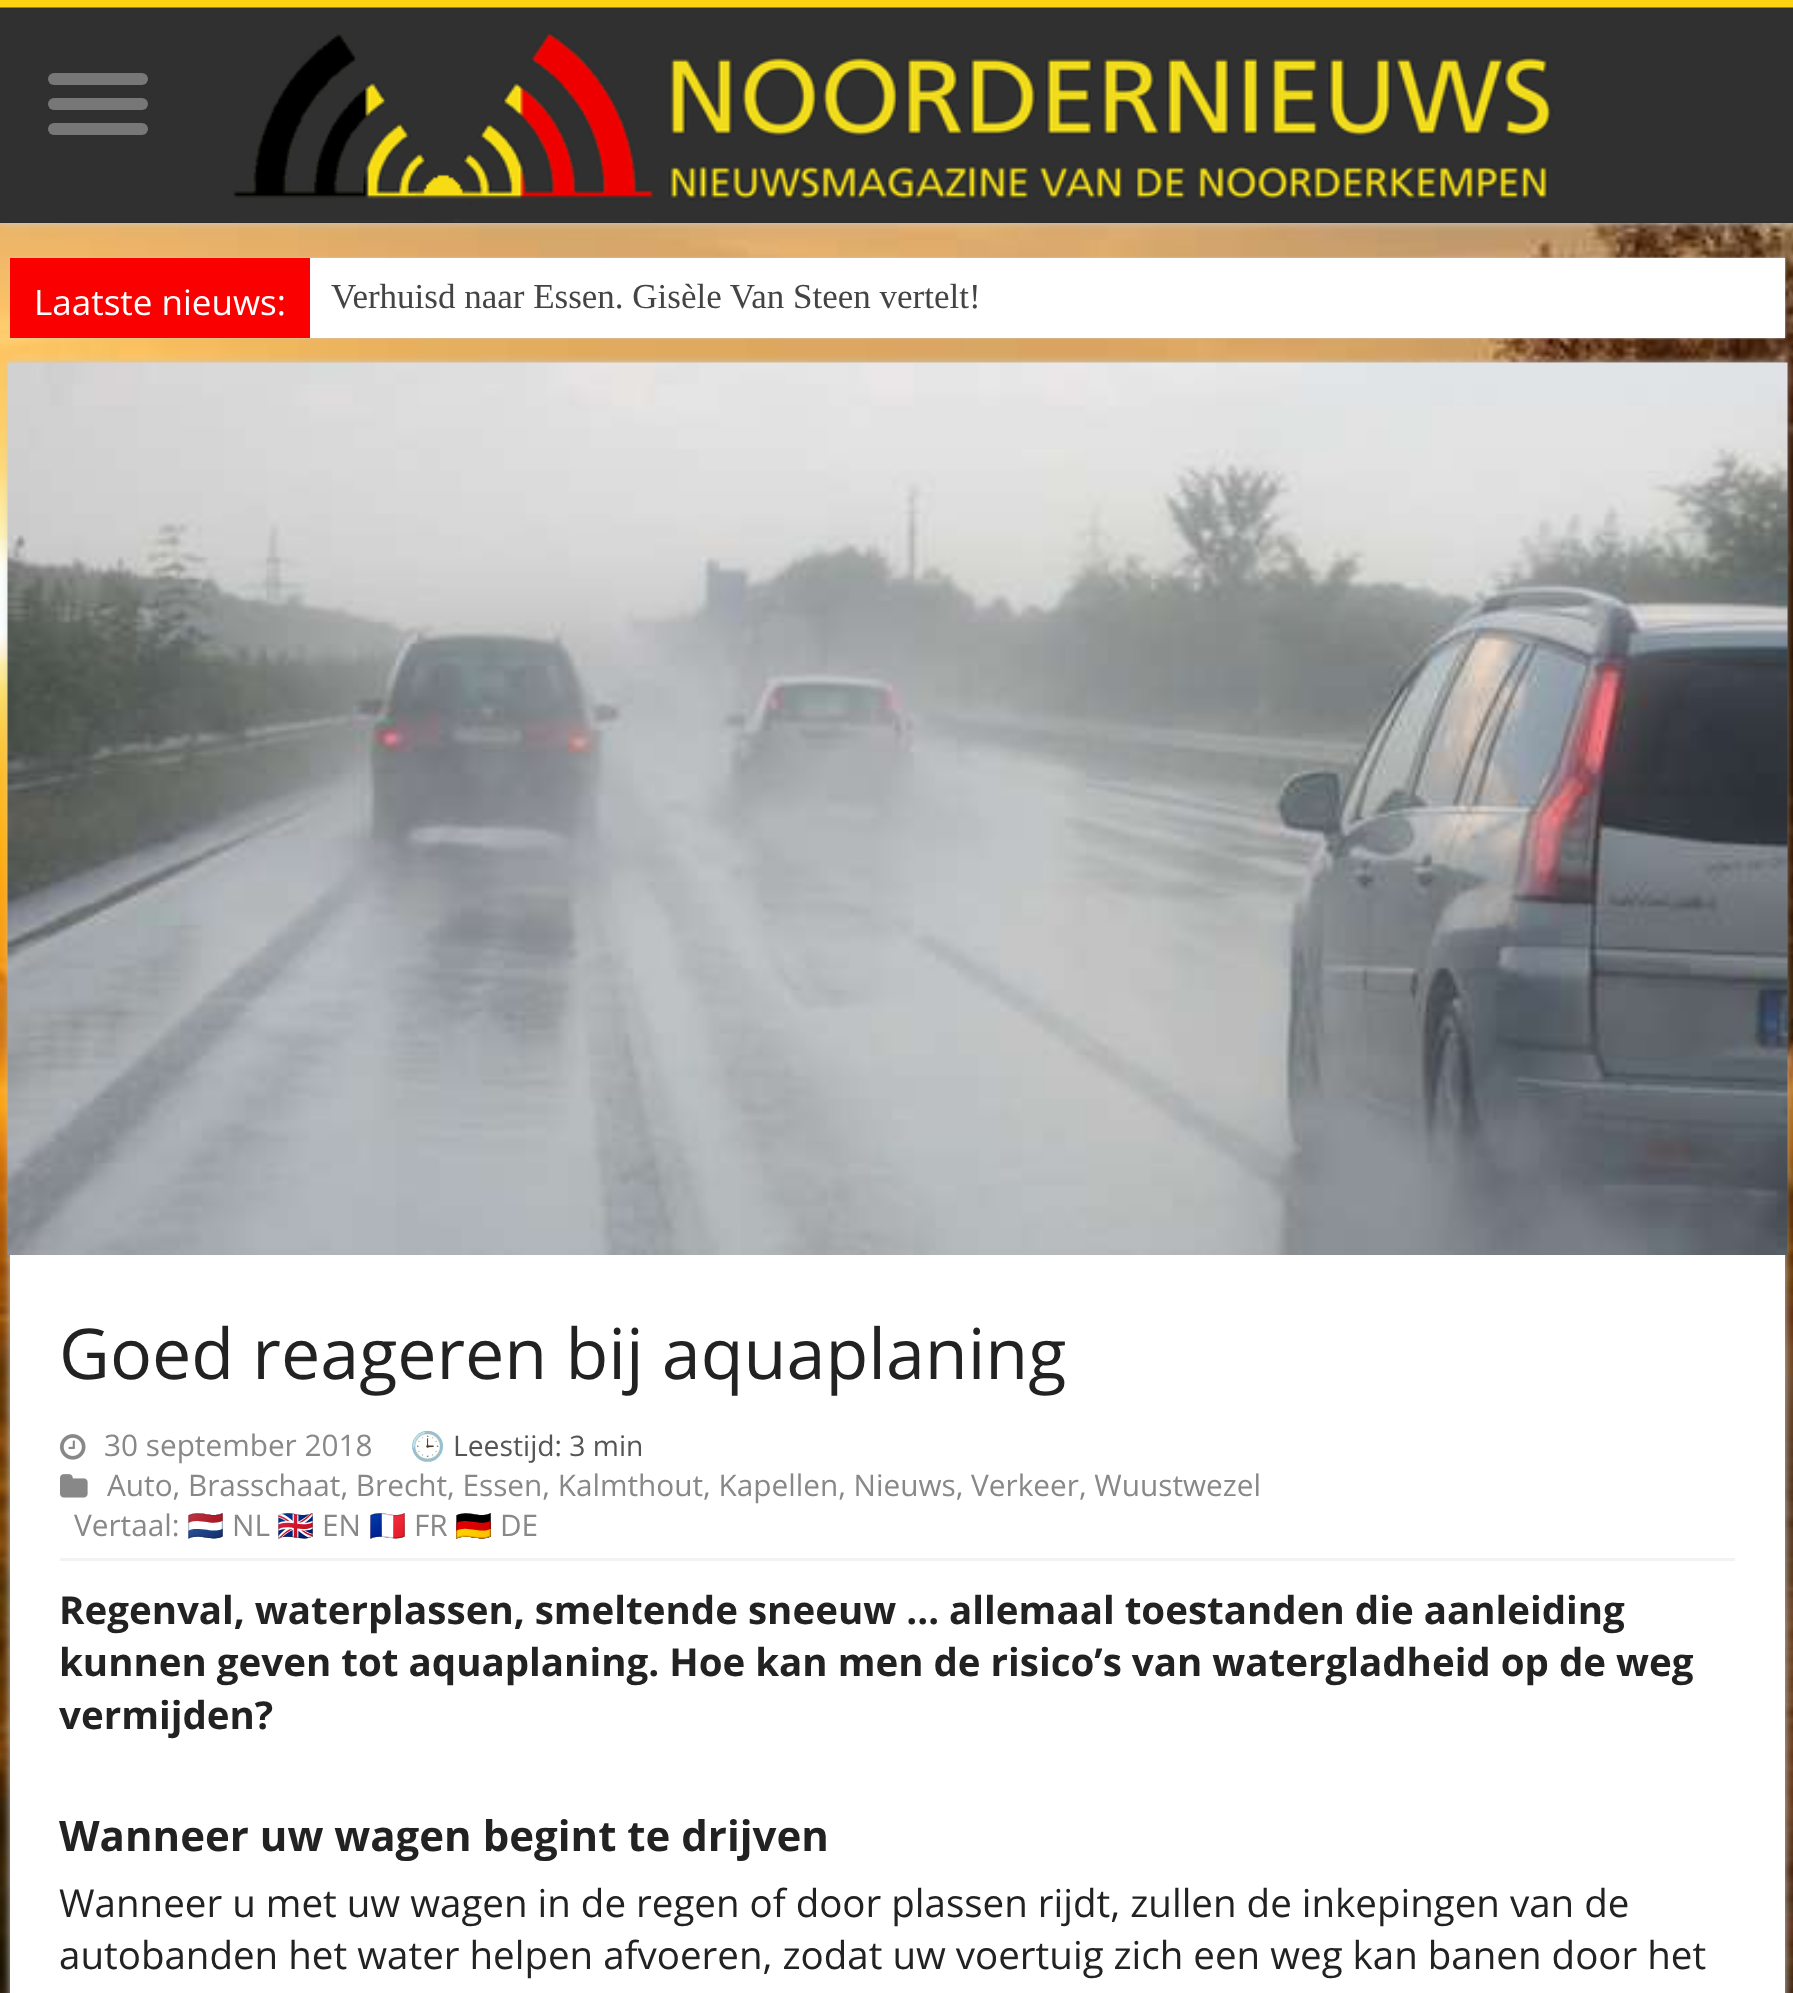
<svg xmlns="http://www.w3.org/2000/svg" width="1793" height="1993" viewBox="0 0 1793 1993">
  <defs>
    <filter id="blur1" x="-50%" y="-200%" width="200%" height="500%"><feGaussianBlur stdDeviation="4"/></filter>
    <filter id="blur2" x="-50%" y="-200%" width="200%" height="500%"><feGaussianBlur stdDeviation="1"/></filter>
    <clipPath id="clip1"><path d="M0 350H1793V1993H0ZM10 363H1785V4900H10Z" clip-rule="evenodd"/></clipPath>
  </defs>
  <rect width="100%" height="100%" fill="#ffffff"/>
  <image x="0" y="223" width="1793" height="1770" href="img1.png"/>
  <rect x="0" y="0" width="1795" height="223" fill="#cacaca" filter="url(#blur1)"/>
  <rect x="0" y="222" width="1793" height="1" fill="#2d2d2d"/>
  <rect x="0" y="0" width="1793" height="8" fill="#fcd40f"/>
  <image x="0" y="7" width="1793" height="215" href="img2.png"/>
  <rect x="48" y="73" width="100" height="12" rx="6" fill="#777777"/>
  <rect x="48" y="98" width="100" height="12" rx="6" fill="#777777"/>
  <rect x="48" y="123" width="100" height="12" rx="6" fill="#777777"/>
  <rect x="10" y="258" width="1775" height="80" fill="#cacaca" filter="url(#blur2)"/>
  <rect x="310" y="258" width="1475" height="80" fill="#ffffff"/>
  <rect x="10" y="258" width="300" height="80" fill="#fa0000"/>
  <text x="34" y="315" font-family="Open Sans" font-size="35" fill="#ffffff">Laatste nieuws:</text>
  <text x="331" y="308" font-family="Liberation Serif" font-size="35" fill="#444444">Verhuisd naar Essen. Gisèle Van Steen vertelt!</text>
  <rect x="10" y="1255" width="1775" height="738" fill="#ffffff"/>
  <g clip-path="url(#clip1)">
    <rect x="10" y="363" width="1775" height="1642" fill="#cacaca" filter="url(#blur1)"/>
  </g>
  <image x="7" y="362" width="1781" height="893" href="img3.png"/>
  <text x="59" y="1379" font-family="Open Sans" font-size="70" fill="#222222">Goed reageren bij aquaplaning</text>
  <rect x="60" y="1558" width="1675" height="3" fill="#f2f2f2"/>
  <image x="60" y="1434" width="26" height="26" href="img4.png"/>
  <text x="104" y="1456" font-family="Open Sans" font-size="29.75" fill="#888888">30 september 2018</text>
  <text x="410" y="1456" font-family="Noto Color Emoji" font-size="28.25" fill="#555555">🕒</text>
  <text x="453" y="1456" font-family="Open Sans" font-size="28.25" fill="#555555">Leestijd: 3 min</text>
  <image x="60" y="1474" width="28" height="24" href="img5.png"/>
  <text x="107" y="1496" font-family="Open Sans" font-size="29.75" fill="#888888">Auto, Brasschaat, Brecht, Essen, Kalmthout, Kapellen, Nieuws, Verkeer, Wuustwezel</text>
  <text x="74" y="1536" font-family="Open Sans" font-size="29.75" fill="#888888">Vertaal:</text>
  <text x="187" y="1536" font-family="Noto Color Emoji" font-size="29.75" fill="#888888">🇳🇱</text>
  <text x="232" y="1536" font-family="Open Sans" font-size="29.75" fill="#888888">NL</text>
  <text x="277" y="1536" font-family="Noto Color Emoji" font-size="29.75" fill="#888888">🇬🇧</text>
  <text x="322" y="1536" font-family="Open Sans" font-size="29.75" fill="#888888">EN</text>
  <text x="369" y="1536" font-family="Noto Color Emoji" font-size="29.75" fill="#888888">🇫🇷</text>
  <text x="414" y="1536" font-family="Open Sans" font-size="29.75" fill="#888888">FR</text>
  <text x="455" y="1536" font-family="Noto Color Emoji" font-size="29.75" fill="#888888">🇩🇪</text>
  <text x="500" y="1536" font-family="Open Sans" font-size="29.75" fill="#888888">DE</text>
  <text x="59" y="1624" font-family="Open Sans" font-size="38.5" font-weight="bold" fill="#222222">Regenval, waterplassen, smeltende sneeuw … allemaal toestanden die aanleiding</text>
  <text x="59" y="1676" font-family="Open Sans" font-size="38.5" font-weight="bold" fill="#222222">kunnen geven tot aquaplaning. Hoe kan men de risico’s van watergladheid op de weg</text>
  <text x="59" y="1729" font-family="Open Sans" font-size="38.5" font-weight="bold" fill="#222222">vermijden?</text>
  <text x="59" y="1851" font-family="Open Sans" font-size="42" font-weight="bold" fill="#222222">Wanneer uw wagen begint te drijven</text>
  <text x="59" y="1917" font-family="Open Sans" font-size="38.5" fill="#222222">Wanneer u met uw wagen in de regen of door plassen rijdt, zullen de inkepingen van de</text>
  <text x="59" y="1969" font-family="Open Sans" font-size="38.5" fill="#222222">autobanden het water helpen afvoeren, zodat uw voertuig zich een weg kan banen door het</text>
</svg>
